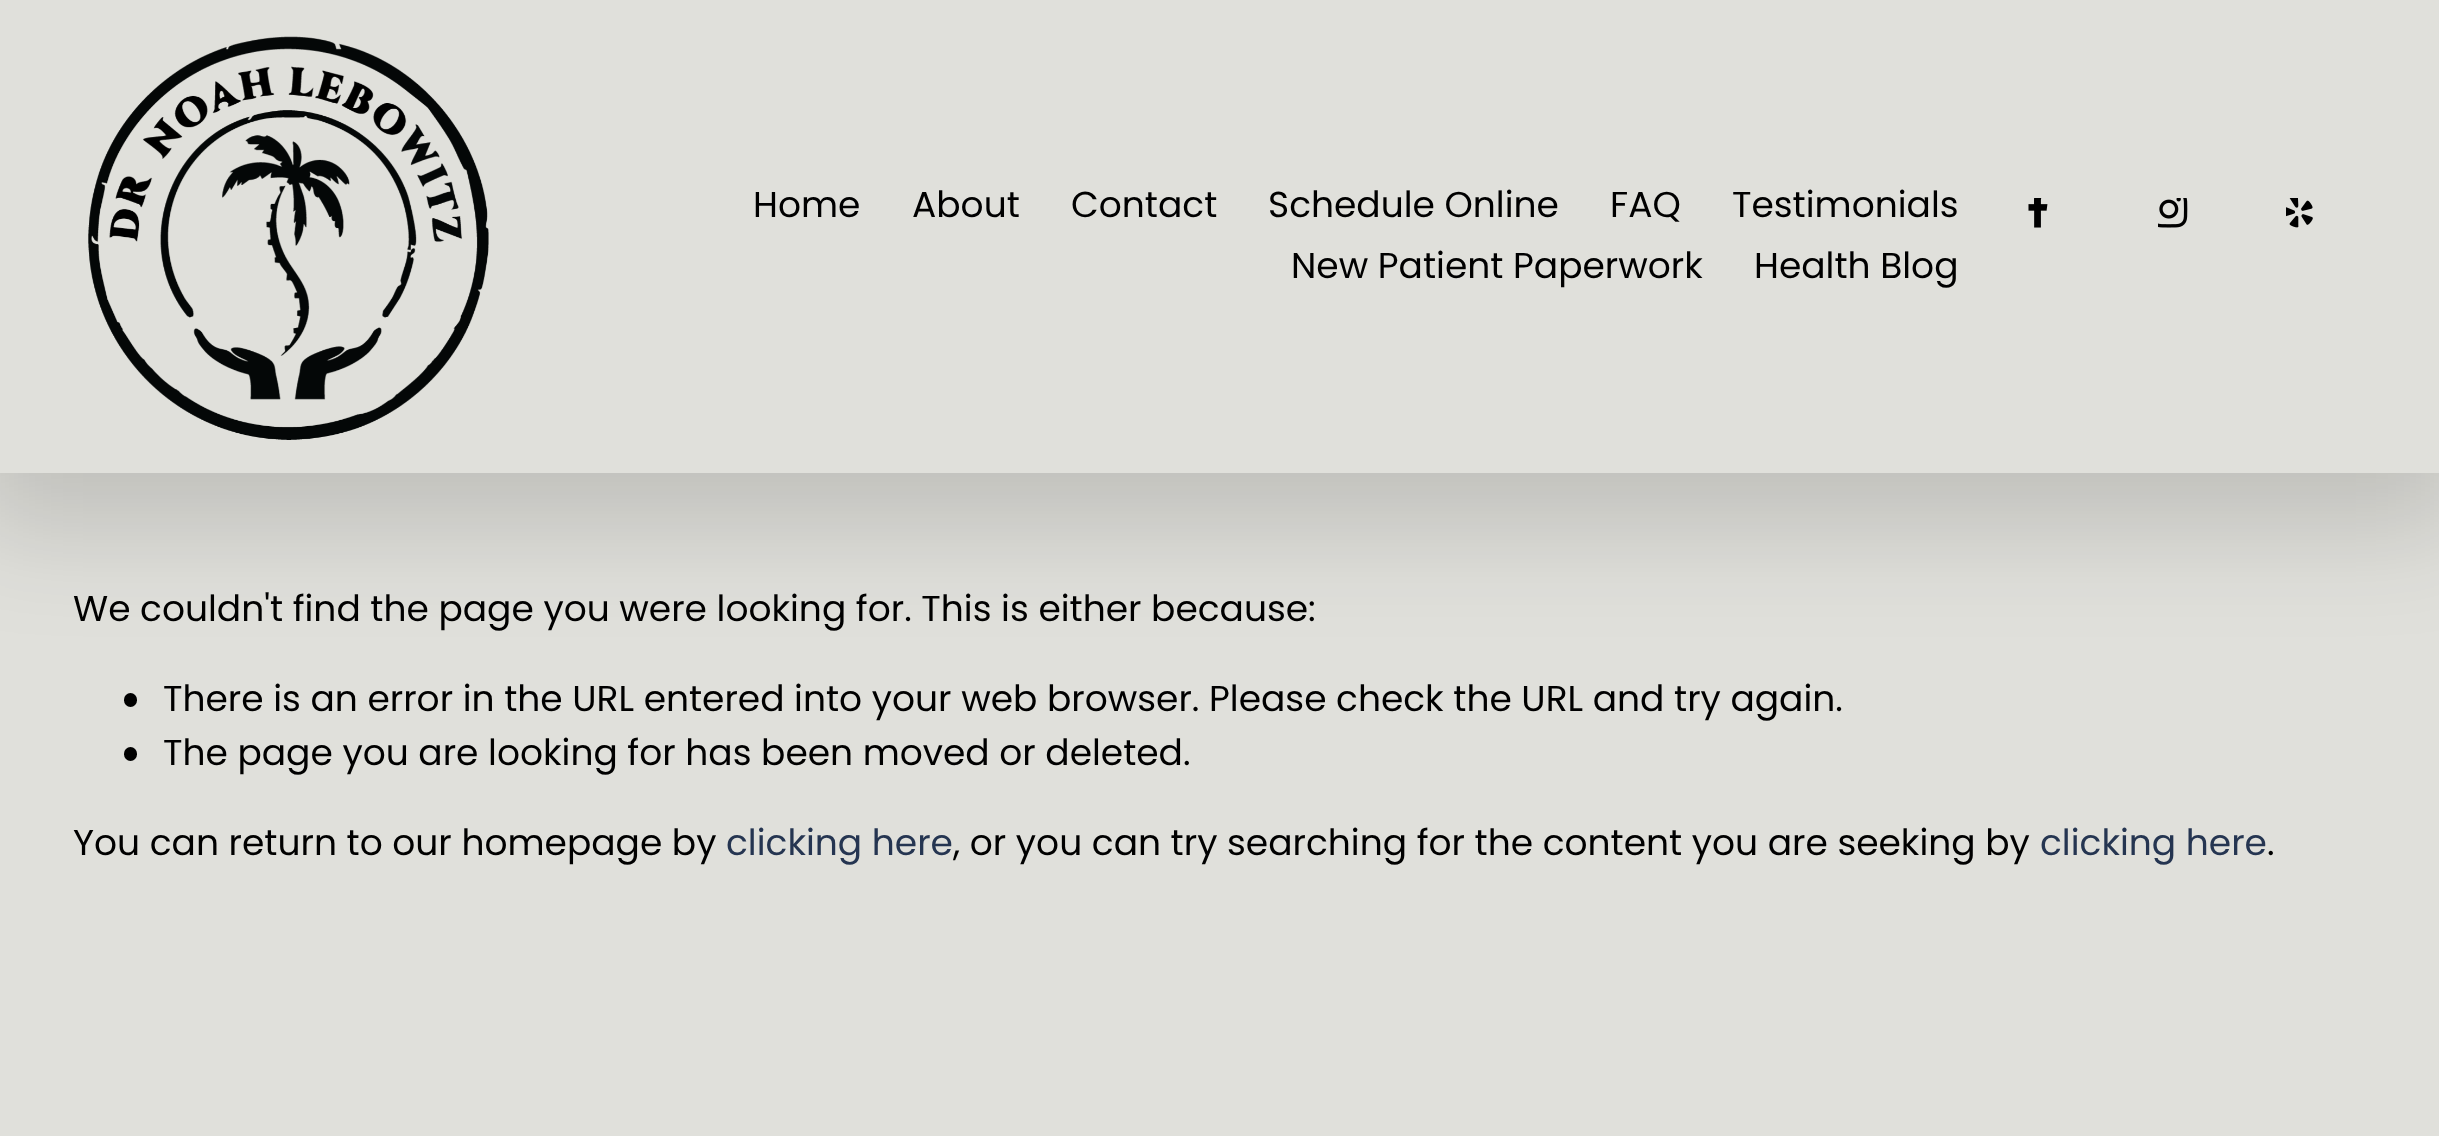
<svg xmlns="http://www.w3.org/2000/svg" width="2439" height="1136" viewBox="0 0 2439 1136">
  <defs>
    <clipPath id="clip1"><path d="M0 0H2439V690H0ZM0 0H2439V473H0Z" clip-rule="evenodd"/></clipPath>
    <filter id="blur1" x="-50%" y="-200%" width="200%" height="500%"><feGaussianBlur stdDeviation="54"/></filter>
  </defs>
  <rect width="100%" height="100%" fill="#e0e0db"/>
  <g clip-path="url(#clip1)">
    <rect x="-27" y="0" width="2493" height="527" fill="#000000" fill-opacity="0.15" filter="url(#blur1)"/>
  </g>
  <image x="88" y="36" width="401" height="404" href="img1.png"/>
  <text x="753" y="217" font-family="Poppins" font-size="36" fill="#000000">Home</text>
  <text x="912" y="217" font-family="Poppins" font-size="36" fill="#000000">About</text>
  <text x="1071" y="217" font-family="Poppins" font-size="36" fill="#000000">Contact</text>
  <text x="1268" y="217" font-family="Poppins" font-size="36" fill="#000000">Schedule Online</text>
  <text x="1610" y="217" font-family="Poppins" font-size="36" fill="#000000">FAQ</text>
  <text x="1732" y="217" font-family="Poppins" font-size="36" fill="#000000">Testimonials</text>
  <text x="1291" y="278" font-family="Poppins" font-size="36" fill="#000000">New Patient Paperwork</text>
  <text x="1754" y="278" font-family="Poppins" font-size="36" fill="#000000">Health Blog</text>
  <image x="2028" y="198" width="20" height="30" href="img2.png"/>
  <image x="2158" y="198" width="30" height="30" href="img3.png"/>
  <image x="2286" y="198" width="27" height="30" href="img4.png"/>
  <text x="73" y="621" font-family="Poppins" font-size="36" fill="#000000">We couldn't find the page you were looking for. This is either because:</text>
  <rect x="124" y="693" width="13" height="14" rx="6.5" fill="#000000"/>
  <text x="163" y="711" font-family="Poppins" font-size="36" fill="#000000">There is an error in the URL entered into your web browser. Please check the URL and try again.</text>
  <rect x="124" y="747" width="13" height="14" rx="6.5" fill="#000000"/>
  <text x="163" y="765" font-family="Poppins" font-size="36" fill="#000000">The page you are looking for has been moved or deleted.</text>
  <text x="73" y="855" font-family="Poppins" font-size="36" fill="#000000">You can return to our homepage by</text>
  <text x="726" y="855" font-family="Poppins" font-size="36" fill="#253551">clicking here</text>
  <text x="953" y="855" font-family="Poppins" font-size="36" fill="#000000">, or you can try searching for the content you are seeking by</text>
  <text x="2040" y="855" font-family="Poppins" font-size="36" fill="#253551">clicking here</text>
  <text x="2267" y="855" font-family="Poppins" font-size="36" fill="#000000">.</text>
</svg>
